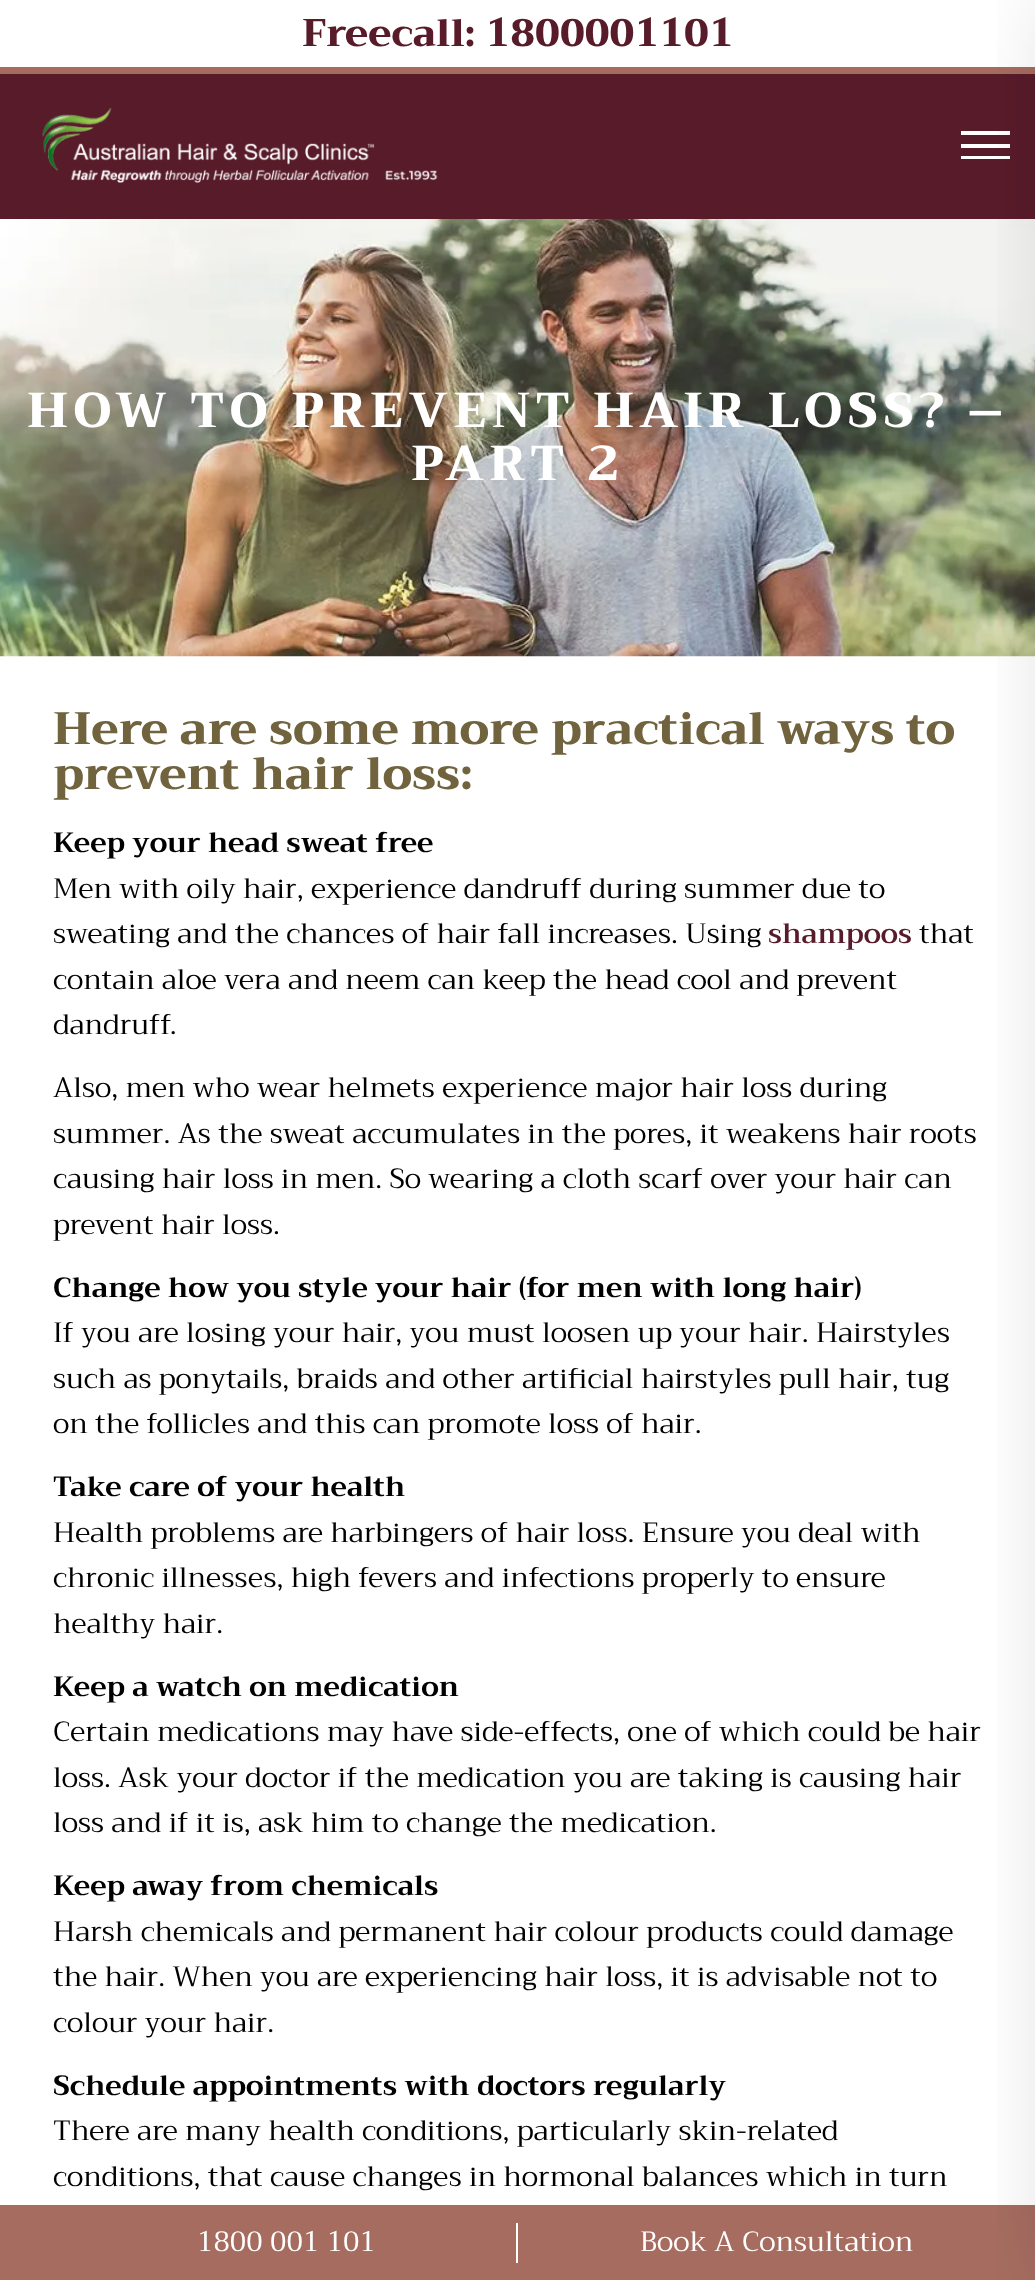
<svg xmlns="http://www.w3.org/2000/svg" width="1035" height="2280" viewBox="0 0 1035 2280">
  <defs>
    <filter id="blur1" x="-50%" y="-200%" width="200%" height="500%"><feGaussianBlur stdDeviation="44"/></filter>
  </defs>
  <rect width="100%" height="100%" fill="#ffffff"/>
  <rect x="0" y="67" width="1035" height="7" fill="#a66c60"/>
  <text x="302" y="46" font-family="Trirong" font-size="38.5" font-weight="800" fill="#581b2a">Freecall: 1800001101</text>
  <rect x="0" y="74" width="1035" height="145" fill="#581b2a"/>
  <rect x="961" y="131" width="49" height="4" fill="#ffffff"/>
  <rect x="961" y="144" width="49" height="4" fill="#ffffff"/>
  <rect x="961" y="156" width="49" height="3" fill="#ffffff"/>
  <image x="0" y="219" width="1035" height="438" href="img2.png"/>
  <rect x="0" y="2205" width="1035" height="75" fill="#a66c60"/>
  <rect x="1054" y="0" width="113" height="2280" fill="#000000" fill-opacity="0.15" filter="url(#blur1)"/>
  <image x="42" y="107" width="396" height="76" href="img1.png"/>
  <text x="27" y="427" font-family="Trirong" font-size="49" font-weight="800" letter-spacing="5.25" fill="#ffffff">HOW TO PREVENT HAIR LOSS? –</text>
  <text x="411" y="480" font-family="Trirong" font-size="49" font-weight="800" letter-spacing="5.25" fill="#ffffff">PART 2</text>
  <text x="53" y="744" font-family="Trirong" font-size="45.5" font-weight="800" fill="#70633e">Here are some more practical ways to</text>
  <text x="53" y="789" font-family="Trirong" font-size="45.5" font-weight="800" fill="#70633e">prevent hair loss:</text>
  <text x="53" y="852" font-family="Trirong" font-size="28" font-weight="bold" fill="#000000">Keep your head sweat free</text>
  <text x="53" y="898" font-family="Trirong" font-size="28" fill="#000000">Men with oily hair, experience dandruff during summer due to</text>
  <text x="53" y="943" font-family="Trirong" font-size="28" fill="#000000">sweating and the chances of hair fall increases. Using</text>
  <text x="768" y="943" font-family="Trirong" font-size="28" font-weight="600" fill="#581b2a">shampoos</text>
  <text x="919" y="943" font-family="Trirong" font-size="28" fill="#000000">that</text>
  <text x="53" y="989" font-family="Trirong" font-size="28" fill="#000000">contain aloe vera and neem can keep the head cool and prevent</text>
  <text x="53" y="1034" font-family="Trirong" font-size="28" fill="#000000">dandruff.</text>
  <text x="53" y="1097" font-family="Trirong" font-size="28" fill="#000000">Also, men who wear helmets experience major hair loss during</text>
  <text x="53" y="1143" font-family="Trirong" font-size="28" fill="#000000">summer. As the sweat accumulates in the pores, it weakens hair roots</text>
  <text x="53" y="1188" font-family="Trirong" font-size="28" fill="#000000">causing hair loss in men. So wearing a cloth scarf over your hair can</text>
  <text x="53" y="1234" font-family="Trirong" font-size="28" fill="#000000">prevent hair loss.</text>
  <text x="53" y="1297" font-family="Trirong" font-size="28" font-weight="bold" fill="#000000">Change how you style your hair (for men with long hair)</text>
  <text x="53" y="1342" font-family="Trirong" font-size="28" fill="#000000">If you are losing your hair, you must loosen up your hair. Hairstyles</text>
  <text x="53" y="1388" font-family="Trirong" font-size="28" fill="#000000">such as ponytails, braids and other artificial hairstyles pull hair, tug</text>
  <text x="53" y="1433" font-family="Trirong" font-size="28" fill="#000000">on the follicles and this can promote loss of hair.</text>
  <text x="53" y="1496" font-family="Trirong" font-size="28" font-weight="bold" fill="#000000">Take care of your health</text>
  <text x="53" y="1542" font-family="Trirong" font-size="28" fill="#000000">Health problems are harbingers of hair loss. Ensure you deal with</text>
  <text x="53" y="1587" font-family="Trirong" font-size="28" fill="#000000">chronic illnesses, high fevers and infections properly to ensure</text>
  <text x="53" y="1633" font-family="Trirong" font-size="28" fill="#000000">healthy hair.</text>
  <text x="53" y="1696" font-family="Trirong" font-size="28" font-weight="bold" fill="#000000">Keep a watch on medication</text>
  <text x="53" y="1741" font-family="Trirong" font-size="28" fill="#000000">Certain medications may have side-effects, one of which could be hair</text>
  <text x="53" y="1787" font-family="Trirong" font-size="28" fill="#000000">loss. Ask your doctor if the medication you are taking is causing hair</text>
  <text x="53" y="1832" font-family="Trirong" font-size="28" fill="#000000">loss and if it is, ask him to change the medication.</text>
  <text x="53" y="1895" font-family="Trirong" font-size="28" font-weight="bold" fill="#000000">Keep away from chemicals</text>
  <text x="53" y="1941" font-family="Trirong" font-size="28" fill="#000000">Harsh chemicals and permanent hair colour products could damage</text>
  <text x="53" y="1986" font-family="Trirong" font-size="28" fill="#000000">the hair. When you are experiencing hair loss, it is advisable not to</text>
  <text x="53" y="2032" font-family="Trirong" font-size="28" fill="#000000">colour your hair.</text>
  <text x="53" y="2095" font-family="Trirong" font-size="28" font-weight="bold" fill="#000000">Schedule appointments with doctors regularly</text>
  <text x="53" y="2140" font-family="Trirong" font-size="28" fill="#000000">There are many health conditions, particularly skin-related</text>
  <text x="53" y="2186" font-family="Trirong" font-size="28" fill="#000000">conditions, that cause changes in hormonal balances which in turn</text>
  <rect x="516" y="2223" width="2" height="40" fill="#ffffff"/>
  <text x="197" y="2251" font-family="Trirong" font-size="28" fill="#ffffff">1800 001 101</text>
  <text x="640" y="2251" font-family="Trirong" font-size="28" fill="#ffffff">Book A Consultation</text>
</svg>
